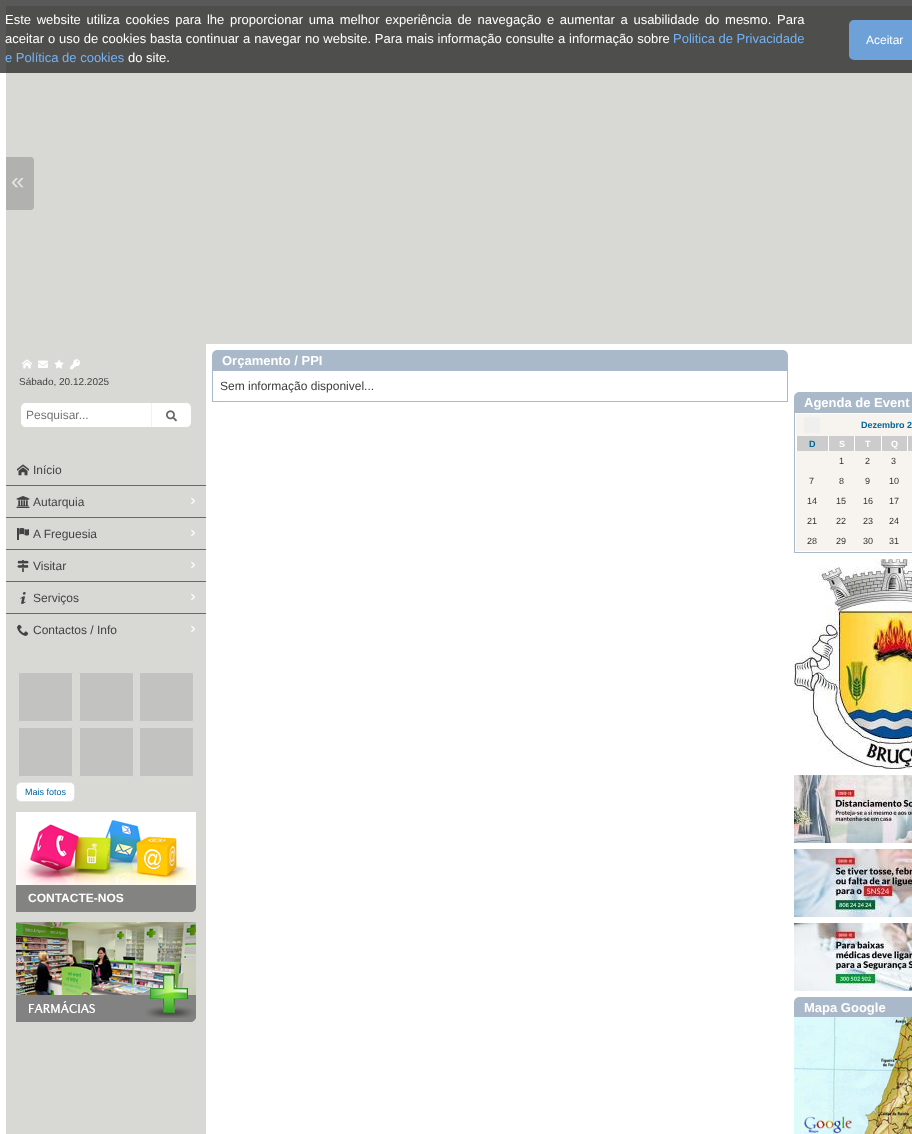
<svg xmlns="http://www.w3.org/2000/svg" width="912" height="1134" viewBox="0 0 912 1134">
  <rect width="100%" height="100%" fill="#ffffff"/>
  <rect x="6" y="6" width="906" height="338" fill="#d8d8d5"/>
  <rect x="0" y="0" width="912" height="73" fill="#191919" fill-opacity="0.72"/>
  <text x="5" y="24" word-spacing="2.1" font-family="Liberation Sans" font-size="13" fill="#ffffff">Este website utiliza cookies para lhe proporcionar uma melhor experiência de navegação e aumentar a usabilidade do mesmo. Para</text>
  <text x="5" y="43" word-spacing="0.25" font-family="Liberation Sans" font-size="13" fill="#ffffff">aceitar o uso de cookies basta continuar a navegar no website. Para mais informação consulte a informação sobre</text>
  <text x="673" y="43" font-family="Liberation Sans" font-size="13" fill="#75b3f5">Politica de Privacidade</text>
  <text x="5" y="62" font-family="Liberation Sans" font-size="13" fill="#75b3f5">e Política de cookies</text>
  <text x="128" y="62" font-family="Liberation Sans" font-size="13" fill="#ffffff">do site.</text>
  <rect x="849" y="20" width="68" height="40" rx="5" fill="#6ea1d7"/>
  <text x="866" y="44" font-family="Liberation Sans" font-size="12" fill="#ffffff">Aceitar</text>
  <path d="M6 157H31C32.5 157 34 158.5 34 160V207C34 208.5 32.5 210 31 210H6Z" fill="#b1b1af"/>
  <text x="11" y="189" font-family="Liberation Sans" font-size="24" fill="#e4e4e2">«</text>
  <rect x="6" y="344" width="200" height="790" fill="#d8d8d5"/>
  <image x="22" y="359" width="10" height="10" href="img1.png"/>
  <image x="38" y="360" width="10" height="8" href="img2.png"/>
  <image x="54" y="359" width="10" height="10" href="img3.png"/>
  <image x="70" y="359" width="10" height="11" href="img4.png"/>
  <text x="19" y="385" font-family="Liberation Sans" font-size="10" fill="#434343">Sábado, 20.12.2025</text>
  <path d="M26 403H151V427H26C23 427 21 425 21 422V408C21 405 23 403 26 403Z" fill="#ffffff"/>
  <text x="26" y="419" font-family="Liberation Sans" font-size="12" fill="#757575">Pesquisar...</text>
  <path d="M151 403H186C189 403 191 405 191 408V422C191 425 189 427 186 427H151Z" fill="#ffffff"/>
  <rect x="151" y="403" width="1" height="24" fill="#f2f2f2"/>
  <image x="166" y="410" width="11" height="12" href="img5.png"/>
  <rect x="6" y="485" width="200" height="1" fill="#686866"/>
  <image x="17" y="464" width="12" height="12" href="img6.png"/>
  <text x="33" y="474" font-family="Liberation Sans" font-size="12" fill="#434343">Início</text>
  <rect x="6" y="517" width="200" height="1" fill="#686866"/>
  <image x="16" y="496" width="14" height="12" href="img7.png"/>
  <text x="33" y="506" font-family="Liberation Sans" font-size="12" fill="#434343">Autarquia</text>
  <image x="191" y="497" width="4" height="8" href="img8.png"/>
  <rect x="6" y="549" width="200" height="1" fill="#686866"/>
  <image x="17" y="528" width="12" height="12" href="img9.png"/>
  <text x="33" y="538" font-family="Liberation Sans" font-size="12" fill="#434343">A Freguesia</text>
  <image x="191" y="529" width="4" height="8" href="img8.png"/>
  <rect x="6" y="581" width="200" height="1" fill="#686866"/>
  <image x="17" y="560" width="12" height="12" href="img10.png"/>
  <text x="33" y="570" font-family="Liberation Sans" font-size="12" fill="#434343">Visitar</text>
  <image x="191" y="561" width="4" height="8" href="img8.png"/>
  <rect x="6" y="613" width="200" height="1" fill="#686866"/>
  <image x="20" y="592" width="6" height="12" href="img11.png"/>
  <text x="33" y="602" font-family="Liberation Sans" font-size="12" fill="#434343">Serviços</text>
  <image x="191" y="593" width="4" height="8" href="img8.png"/>
  <image x="17" y="624" width="12" height="12" href="img12.png"/>
  <text x="33" y="634" font-family="Liberation Sans" font-size="12" fill="#434343">Contactos / Info</text>
  <image x="191" y="625" width="4" height="8" href="img8.png"/>
  <rect x="18" y="672" width="55" height="50" rx="2" fill="#c2c2c0"/>
  <rect x="18.5" y="672.5" width="54" height="49" rx="1.5" fill="none" stroke="#efefef" stroke-opacity="0.5"/>
  <rect x="79" y="672" width="55" height="50" rx="2" fill="#c2c2c0"/>
  <rect x="79.5" y="672.5" width="54" height="49" rx="1.5" fill="none" stroke="#efefef" stroke-opacity="0.5"/>
  <rect x="139" y="672" width="55" height="50" rx="2" fill="#c2c2c0"/>
  <rect x="139.5" y="672.5" width="54" height="49" rx="1.5" fill="none" stroke="#efefef" stroke-opacity="0.5"/>
  <rect x="18" y="727" width="55" height="50" rx="2" fill="#c2c2c0"/>
  <rect x="18.5" y="727.5" width="54" height="49" rx="1.5" fill="none" stroke="#efefef" stroke-opacity="0.5"/>
  <rect x="79" y="727" width="55" height="50" rx="2" fill="#c2c2c0"/>
  <rect x="79.5" y="727.5" width="54" height="49" rx="1.5" fill="none" stroke="#efefef" stroke-opacity="0.5"/>
  <rect x="139" y="727" width="55" height="50" rx="2" fill="#c2c2c0"/>
  <rect x="139.5" y="727.5" width="54" height="49" rx="1.5" fill="none" stroke="#efefef" stroke-opacity="0.5"/>
  <rect x="16.5" y="782.5" width="58" height="19" rx="4.5" fill="#ffffff" stroke="#e4e4e4"/>
  <text x="25" y="795" font-family="Liberation Sans" font-size="9" fill="#006699">Mais fotos</text>
  <image x="16" y="812" width="180" height="73" href="img13.png"/>
  <path d="M16 885H196V907C196 910 194 912 191 912H16Z" fill="#838382"/>
  <text x="28" y="902" font-family="Liberation Sans" font-size="12" font-weight="bold" fill="#ffffff">CONTACTE-NOS</text>
  <image x="16" y="922" width="180" height="100" href="img14.png"/>
  <rect x="212" y="350" width="576" height="20" fill="#a9b9c9"/>
  <image x="212" y="350" width="5" height="5" href="img15.png"/>
  <image x="783" y="350" width="5" height="5" href="img16.png"/>
  <text x="222" y="365" font-family="Liberation Sans" font-size="13" font-weight="bold" fill="#ffffff">Orçamento / PPI</text>
  <rect x="212.5" y="370.5" width="575" height="31" fill="none" stroke="#a9b9c9"/>
  <text x="220" y="390" font-family="Liberation Sans" font-size="12" fill="#3b3c3d">Sem informação disponivel...</text>
  <rect x="794" y="392" width="118" height="20" fill="#a9b9c9"/>
  <image x="794" y="392" width="5" height="5" href="img15.png"/>
  <text x="804" y="407" font-family="Liberation Sans" font-size="13" font-weight="bold" fill="#ffffff">Agenda de Event</text>
  <rect x="794.5" y="412.5" width="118" height="140" fill="none" stroke="#a9b9c9"/>
  <rect x="796" y="414" width="116" height="137" fill="#f7f3ef"/>
  <rect x="804" y="417" width="16" height="16" fill="#efefef"/>
  <text x="861" y="428" font-family="Liberation Sans" font-size="9" font-weight="bold" fill="#006699">Dezembro 2</text>
  <rect x="797" y="436" width="31" height="15" fill="#cccccc"/>
  <rect x="796" y="436" width="1" height="15" fill="#ffffff"/>
  <text x="809" y="447" font-family="Liberation Sans" font-size="9" font-weight="bold" fill="#006699">D</text>
  <rect x="829" y="436" width="25" height="15" fill="#cccccc"/>
  <rect x="828" y="436" width="1" height="15" fill="#ffffff"/>
  <text x="839" y="447" font-family="Liberation Sans" font-size="9" font-weight="bold" fill="#ffffff">S</text>
  <rect x="855" y="436" width="26" height="15" fill="#cccccc"/>
  <rect x="854" y="436" width="1" height="15" fill="#ffffff"/>
  <text x="865" y="447" font-family="Liberation Sans" font-size="9" font-weight="bold" fill="#ffffff">T</text>
  <rect x="882" y="436" width="25" height="15" fill="#cccccc"/>
  <rect x="881" y="436" width="1" height="15" fill="#ffffff"/>
  <text x="891" y="447" font-family="Liberation Sans" font-size="9" font-weight="bold" fill="#ffffff">Q</text>
  <rect x="908" y="436" width="4" height="15" fill="#cccccc"/>
  <rect x="907" y="436" width="1" height="15" fill="#ffffff"/>
  <text x="839" y="464" font-family="Liberation Sans" font-size="9" fill="#333333">1</text>
  <text x="865" y="464" font-family="Liberation Sans" font-size="9" fill="#333333">2</text>
  <text x="891" y="464" font-family="Liberation Sans" font-size="9" fill="#333333">3</text>
  <text x="809" y="484" font-family="Liberation Sans" font-size="9" fill="#333333">7</text>
  <text x="839" y="484" font-family="Liberation Sans" font-size="9" fill="#333333">8</text>
  <text x="865" y="484" font-family="Liberation Sans" font-size="9" fill="#333333">9</text>
  <text x="889" y="484" font-family="Liberation Sans" font-size="9" fill="#333333">10</text>
  <text x="807" y="504" font-family="Liberation Sans" font-size="9" fill="#333333">14</text>
  <text x="836" y="504" font-family="Liberation Sans" font-size="9" fill="#333333">15</text>
  <text x="863" y="504" font-family="Liberation Sans" font-size="9" fill="#333333">16</text>
  <text x="889" y="504" font-family="Liberation Sans" font-size="9" fill="#333333">17</text>
  <text x="807" y="524" font-family="Liberation Sans" font-size="9" fill="#333333">21</text>
  <text x="836" y="524" font-family="Liberation Sans" font-size="9" fill="#333333">22</text>
  <text x="863" y="524" font-family="Liberation Sans" font-size="9" fill="#333333">23</text>
  <text x="889" y="524" font-family="Liberation Sans" font-size="9" fill="#333333">24</text>
  <text x="807" y="544" font-family="Liberation Sans" font-size="9" fill="#333333">28</text>
  <text x="836" y="544" font-family="Liberation Sans" font-size="9" fill="#333333">29</text>
  <text x="863" y="544" font-family="Liberation Sans" font-size="9" fill="#333333">30</text>
  <text x="889" y="544" font-family="Liberation Sans" font-size="9" fill="#333333">31</text>
  <image x="794" y="559" width="118" height="210" href="img17.png"/>
  <image x="794" y="775" width="118" height="68" href="img18.png"/>
  <image x="794" y="849" width="118" height="68" href="img19.png"/>
  <image x="794" y="923" width="118" height="68" href="img20.png"/>
  <rect x="794" y="997" width="118" height="20" fill="#a9b9c9"/>
  <image x="794" y="997" width="5" height="5" href="img15.png"/>
  <text x="804" y="1012" font-family="Liberation Sans" font-size="13" font-weight="bold" fill="#ffffff">Mapa Google</text>
  <image x="794" y="1017" width="118" height="117" href="img21.png"/>
</svg>
